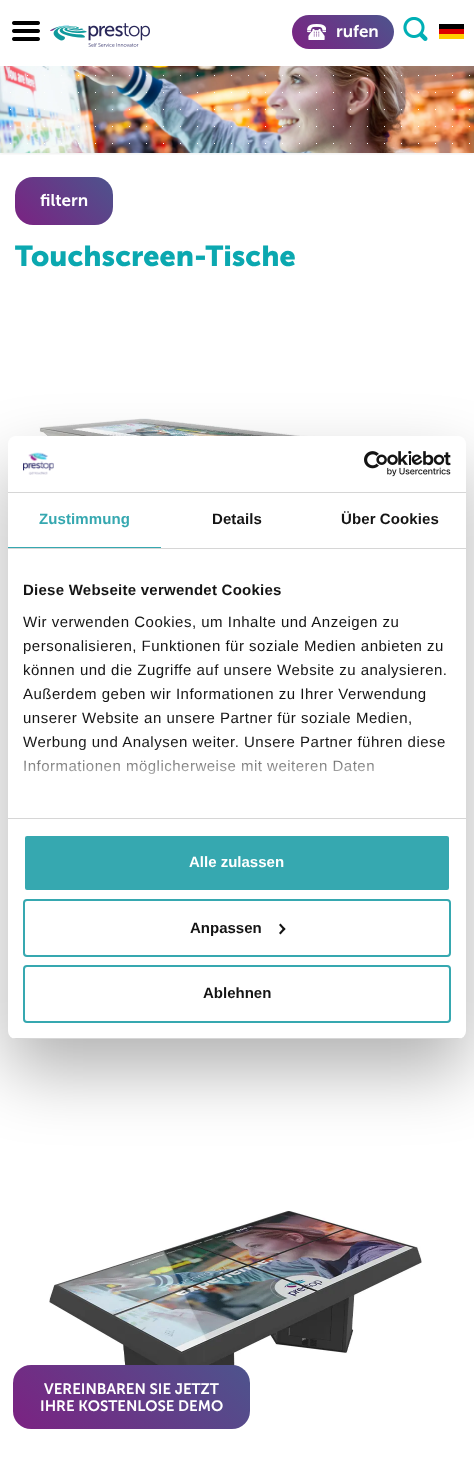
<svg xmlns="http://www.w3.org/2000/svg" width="474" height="1474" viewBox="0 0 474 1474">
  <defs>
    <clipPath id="clip1"><rect x="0" y="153" width="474" height="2"/></clipPath>
    <filter id="blur1" x="-50%" y="-200%" width="200%" height="500%"><feGaussianBlur stdDeviation="2"/></filter>
    <linearGradient id="g1" gradientUnits="userSpaceOnUse" x1="309" y1="66" x2="377" y2="-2"><stop offset="0" stop-color="#7b2282"/><stop offset="1" stop-color="#4d548d"/></linearGradient>
    <linearGradient id="g2" gradientUnits="userSpaceOnUse" x1="28" y1="238" x2="101" y2="165"><stop offset="0" stop-color="#7b2282"/><stop offset="1" stop-color="#4d548d"/></linearGradient>
    <linearGradient id="g3" gradientUnits="userSpaceOnUse" x1="56" y1="1472" x2="207" y2="1322"><stop offset="0" stop-color="#7b2282"/><stop offset="1" stop-color="#4d548d"/></linearGradient>
    <filter id="blur2" x="-50%" y="-200%" width="200%" height="500%"><feGaussianBlur stdDeviation="34"/></filter>
    <linearGradient id="g4" gradientUnits="userSpaceOnUse" x1="231" y1="818" x2="231" y2="743"><stop offset="0" stop-color="#ffffff"/><stop offset="0.5" stop-color="#ffffff" stop-opacity="0.8"/><stop offset="1" stop-color="#ffffff" stop-opacity="0"/></linearGradient>
    <clipPath id="clip2"><rect x="8" y="436" width="458" height="603" rx="8"/></clipPath>
  </defs>
  <rect width="100%" height="100%" fill="#ffffff"/>
  <g clip-path="url(#clip1)">
    <rect x="0" y="0" width="474" height="153" fill="#000000" fill-opacity="0.1" filter="url(#blur1)"/>
  </g>
  <image x="12" y="21" width="28" height="20" href="img1.png"/>
  <image x="50" y="23" width="100" height="24" href="img2.png"/>
  <rect x="292" y="15" width="102" height="34" rx="17" fill="url(#g1)"/>
  <image x="307" y="24" width="19" height="16" href="img3.png"/>
  <text x="336" y="37" font-family="Museo Sans" font-size="17" font-weight="600" fill="#ffffff">rufen</text>
  <image x="403" y="17" width="25" height="24" href="img4.png"/>
  <rect x="439" y="24" width="25" height="5" fill="#000000"/>
  <rect x="439" y="29" width="25" height="5" fill="#dd0000"/>
  <rect x="439" y="34" width="25" height="5" fill="#ffce00"/>
  <image x="0" y="66" width="474" height="87" href="img5.png"/>
  <image x="10" y="75" width="460" height="69" href="img6.png"/>
  <rect x="15" y="177" width="98" height="48" rx="18" fill="url(#g2)"/>
  <text x="40" y="206" font-family="Museo Sans" font-size="17" font-weight="600" fill="#ffffff">filtern</text>
  <text x="15" y="266" font-family="Museo Sans" font-size="28.75" font-weight="bold" fill="#0ba8b0">Touchscreen-Tische</text>
  <image x="39" y="418" width="396" height="18" href="img7.png"/>
  <image x="49" y="1211" width="373" height="213" href="img8.png"/>
  <rect x="13" y="1365" width="237" height="64" rx="18" fill="url(#g3)"/>
  <text x="44" y="1394" font-family="Museo Sans" font-size="15" font-weight="600" fill="#ffffff">VEREINBAREN SIE JETZT</text>
  <text x="40" y="1411" font-family="Museo Sans" font-size="15" font-weight="600" fill="#ffffff">IHRE KOSTENLOSE DEMO</text>
  <rect x="8" y="468" width="458" height="603" rx="8" fill="#000000" fill-opacity="0.3" filter="url(#blur2)"/>
  <rect x="8" y="436" width="458" height="603" rx="8" fill="#ffffff"/>
  <rect x="8" y="492" width="458" height="1" fill="#d6d6d6"/>
  <image x="23" y="452" width="31" height="23" href="img9.png"/>
  <image x="364" y="451" width="87" height="26" href="img10.png"/>
  <rect x="8" y="548" width="458" height="1" fill="#d6d6d6"/>
  <rect x="8" y="547" width="153" height="1" fill="#36a8b0"/>
  <text x="39" y="524" font-family="Liberation Sans" font-size="15" font-weight="bold" letter-spacing="0.1" fill="#36a8b0">Zustimmung</text>
  <text x="212" y="524" font-family="Liberation Sans" font-size="15" font-weight="bold" letter-spacing="0.1" fill="#141414">Details</text>
  <text x="341" y="524" font-family="Liberation Sans" font-size="15" font-weight="bold" letter-spacing="0.1" fill="#141414">Über Cookies</text>
  <rect x="8" y="818" width="458" height="1" fill="#d6d6d6"/>
  <text x="23" y="595" font-family="Liberation Sans" font-size="15" font-weight="bold" letter-spacing="0.25" fill="#141414">Diese Webseite verwendet Cookies</text>
  <text x="23" y="627" font-family="Liberation Sans" font-size="15" letter-spacing="0.5" fill="#141414">Wir verwenden Cookies, um Inhalte und Anzeigen zu</text>
  <text x="23" y="651" font-family="Liberation Sans" font-size="15" letter-spacing="0.5" fill="#141414">personalisieren, Funktionen für soziale Medien anbieten zu</text>
  <text x="23" y="675" font-family="Liberation Sans" font-size="15" letter-spacing="0.5" fill="#141414">können und die Zugriffe auf unsere Website zu analysieren.</text>
  <text x="23" y="699" font-family="Liberation Sans" font-size="15" letter-spacing="0.5" fill="#141414">Außerdem geben wir Informationen zu Ihrer Verwendung</text>
  <text x="23" y="723" font-family="Liberation Sans" font-size="15" letter-spacing="0.5" fill="#141414">unserer Website an unsere Partner für soziale Medien,</text>
  <text x="23" y="747" font-family="Liberation Sans" font-size="15" letter-spacing="0.5" fill="#141414">Werbung und Analysen weiter. Unsere Partner führen diese</text>
  <text x="23" y="771" font-family="Liberation Sans" font-size="15" letter-spacing="0.5" fill="#141414">Informationen möglicherweise mit weiteren Daten</text>
  <rect x="24" y="744" width="421" height="31" fill="url(#g4)"/>
  <g clip-path="url(#clip2)">
    <rect x="8" y="1038" width="458" height="1" fill="#d6d6d6"/>
  </g>
  <rect x="24" y="835" width="426" height="56" rx="3" fill="#36a8b0" stroke="#ffffff" stroke-width="2"/>
  <text x="189" y="867" font-family="Liberation Sans" font-size="15" font-weight="bold" fill="#ffffff">Alle zulassen</text>
  <rect x="24" y="900" width="426" height="56" rx="3" fill="none" stroke="#36a8b0" stroke-width="2"/>
  <text x="190" y="933" font-family="Liberation Sans" font-size="15" font-weight="bold" fill="#141414">Anpassen</text>
  <path d="M280.5 923.5L285.5 929L284 930.5L279 925Z" fill="#141414"/>
  <path d="M284 927.5L285.5 929L280.5 934.5L279 933Z" fill="#141414"/>
  <rect x="24" y="966" width="426" height="56" rx="3" fill="none" stroke="#36a8b0" stroke-width="2"/>
  <text x="203" y="998" font-family="Liberation Sans" font-size="15" font-weight="bold" fill="#141414">Ablehnen</text>
</svg>
